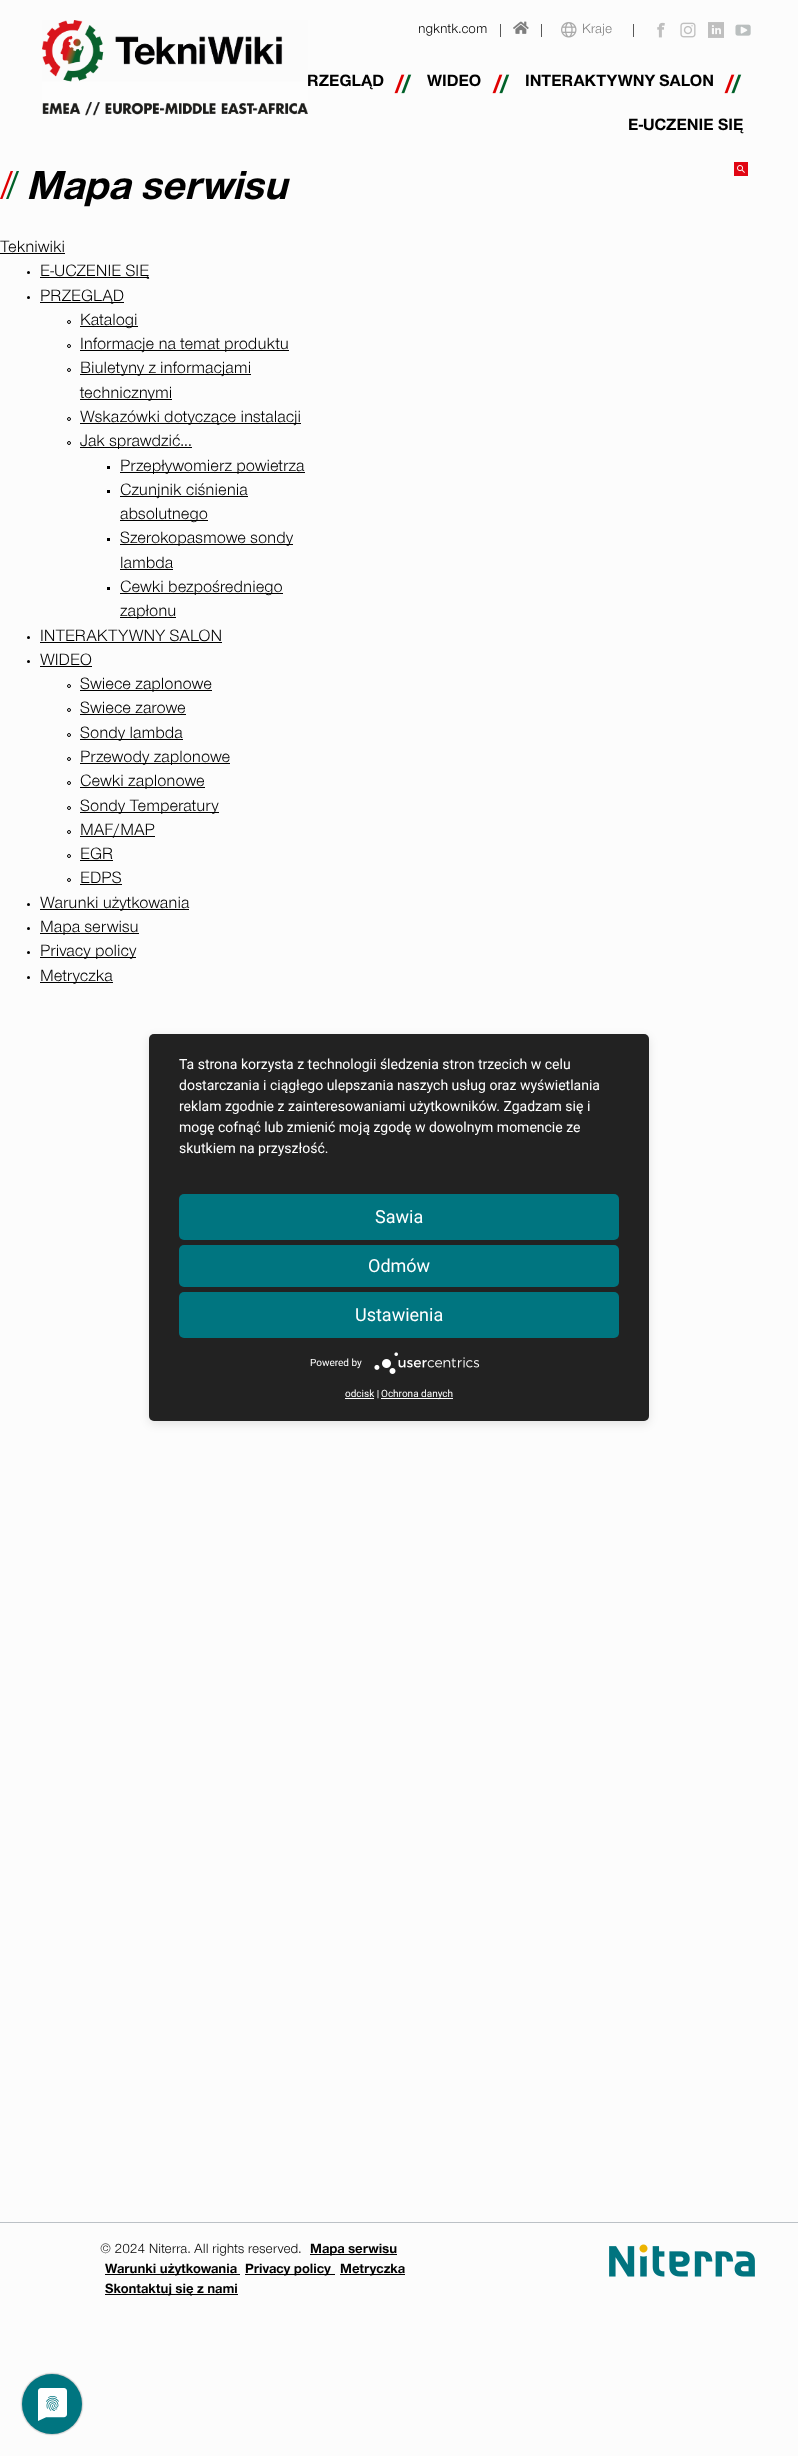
<svg xmlns="http://www.w3.org/2000/svg" width="798" height="2456" viewBox="0 0 798 2456">
  <defs>
    <filter id="blur1" x="-50%" y="-200%" width="200%" height="500%"><feGaussianBlur stdDeviation="5"/></filter>
    <clipPath id="clip1"><rect x="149" y="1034" width="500" height="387" rx="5"/></clipPath>
    <filter id="blur2" x="-50%" y="-200%" width="200%" height="500%"><feGaussianBlur stdDeviation="18"/></filter>
  </defs>
  <rect width="100%" height="100%" fill="#fcfcfc"/>
  <text x="307" y="86" font-family="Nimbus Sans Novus" font-size="17" font-weight="bold" fill="#000000">RZEGLĄD</text>
  <image x="42" y="20" width="266" height="96" href="img1.png"/>
  <text x="418" y="33" font-family="Nimbus Sans Novus" font-size="14" fill="#000000">ngkntk.com</text>
  <rect x="500" y="24" width="1" height="13" fill="#595959"/>
  <image x="513" y="21" width="16" height="13" href="img2.png"/>
  <rect x="541" y="24" width="1" height="13" fill="#595959"/>
  <image x="561" y="22" width="16" height="16" href="img3.png"/>
  <text x="582" y="33" font-family="Nimbus Sans Novus" font-size="14" fill="#7f7f7f">Kraje</text>
  <rect x="633" y="24" width="1" height="13" fill="#595959"/>
  <image x="657" y="22" width="8" height="16" href="img4.png"/>
  <image x="680" y="22" width="16" height="16" href="img5.png"/>
  <image x="708" y="22" width="16" height="16" href="img6.png"/>
  <image x="735" y="24" width="16" height="12" href="img7.png"/>
  <image x="394" y="74" width="18" height="20" href="img8.png"/>
  <text x="427" y="86" font-family="Nimbus Sans Novus" font-size="17" font-weight="bold" fill="#000000">WIDEO</text>
  <image x="492" y="74" width="18" height="20" href="img8.png"/>
  <text x="525" y="86" font-family="Nimbus Sans Novus" font-size="17" font-weight="bold" fill="#000000">INTERAKTYWNY SALON</text>
  <image x="724" y="74" width="18" height="20" href="img8.png"/>
  <text x="628" y="130" font-family="Nimbus Sans Novus" font-size="17" font-weight="bold" fill="#000000">E-UCZENIE SIĘ</text>
  <image x="734" y="162" width="14" height="14" href="img9.png"/>
  <image x="0" y="171" width="19" height="28" href="img10.png"/>
  <text x="26" y="199" font-family="Nimbus Sans Novus" font-size="42" font-weight="bold" font-style="italic" fill="#000000">Mapa serwisu</text>
  <text x="0" y="252" font-family="Nimbus Sans Novus" font-size="17" fill="#000000">Tekniwiki</text>
  <rect x="0" y="253" width="65" height="1" fill="#000000"/>
  <circle cx="28.5" cy="272.5" r="1.5" fill="#000000"/>
  <rect x="40" y="277" width="109" height="1" fill="#000000"/>
  <text x="40" y="276" font-family="Nimbus Sans Novus" font-size="17" fill="#000000">E-UCZENIE SIĘ</text>
  <circle cx="28.5" cy="297.5" r="1.5" fill="#000000"/>
  <rect x="40" y="302" width="84" height="1" fill="#000000"/>
  <text x="40" y="301" font-family="Nimbus Sans Novus" font-size="17" fill="#000000">PRZEGLĄD</text>
  <circle cx="69" cy="322" r="1.5" fill="none" stroke="#000000"/>
  <rect x="80" y="326" width="58" height="1" fill="#000000"/>
  <text x="80" y="325" font-family="Nimbus Sans Novus" font-size="17" fill="#000000">Katalogi</text>
  <circle cx="69" cy="346" r="1.5" fill="none" stroke="#000000"/>
  <rect x="80" y="350" width="209" height="1" fill="#000000"/>
  <text x="80" y="349" font-family="Nimbus Sans Novus" font-size="17" fill="#000000">Informacje na temat produktu</text>
  <circle cx="69" cy="370" r="1.5" fill="none" stroke="#000000"/>
  <rect x="80" y="374" width="171" height="1" fill="#000000"/>
  <text x="80" y="373" font-family="Nimbus Sans Novus" font-size="17" fill="#000000">Biuletyny z informacjami</text>
  <rect x="80" y="399" width="92" height="1" fill="#000000"/>
  <text x="80" y="398" font-family="Nimbus Sans Novus" font-size="17" fill="#000000">technicznymi</text>
  <circle cx="69" cy="419" r="1.5" fill="none" stroke="#000000"/>
  <rect x="80" y="423" width="221" height="1" fill="#000000"/>
  <text x="80" y="422" font-family="Nimbus Sans Novus" font-size="17" fill="#000000">Wskazówki dotyczące instalacji</text>
  <circle cx="69" cy="443" r="1.5" fill="none" stroke="#000000"/>
  <rect x="80" y="447" width="112" height="1" fill="#000000"/>
  <text x="80" y="446" font-family="Nimbus Sans Novus" font-size="17" fill="#000000">Jak sprawdzić...</text>
  <rect x="107" y="466" width="3" height="3" fill="#000000"/>
  <rect x="120" y="472" width="185" height="1" fill="#000000"/>
  <text x="120" y="471" font-family="Nimbus Sans Novus" font-size="17" fill="#000000">Przepływomierz powietrza</text>
  <rect x="107" y="490" width="3" height="3" fill="#000000"/>
  <rect x="120" y="496" width="128" height="1" fill="#000000"/>
  <text x="120" y="495" font-family="Nimbus Sans Novus" font-size="17" fill="#000000">Czunjnik ciśnienia</text>
  <rect x="120" y="520" width="88" height="1" fill="#000000"/>
  <text x="120" y="519" font-family="Nimbus Sans Novus" font-size="17" fill="#000000">absolutnego</text>
  <rect x="107" y="538" width="3" height="3" fill="#000000"/>
  <rect x="120" y="544" width="173" height="1" fill="#000000"/>
  <text x="120" y="543" font-family="Nimbus Sans Novus" font-size="17" fill="#000000">Szerokopasmowe sondy</text>
  <text x="120" y="568" font-family="Nimbus Sans Novus" font-size="17" fill="#000000">lambda</text>
  <rect x="120" y="569" width="53" height="1" fill="#000000"/>
  <rect x="107" y="587" width="3" height="3" fill="#000000"/>
  <rect x="120" y="593" width="163" height="1" fill="#000000"/>
  <text x="120" y="592" font-family="Nimbus Sans Novus" font-size="17" fill="#000000">Cewki bezpośredniego</text>
  <rect x="120" y="617" width="56" height="1" fill="#000000"/>
  <text x="120" y="616" font-family="Nimbus Sans Novus" font-size="17" fill="#000000">zapłonu</text>
  <circle cx="28.5" cy="637.5" r="1.5" fill="#000000"/>
  <text x="40" y="641" font-family="Nimbus Sans Novus" font-size="17" fill="#000000">INTERAKTYWNY SALON</text>
  <rect x="40" y="642" width="182" height="1" fill="#000000"/>
  <circle cx="28.5" cy="661.5" r="1.5" fill="#000000"/>
  <text x="40" y="665" font-family="Nimbus Sans Novus" font-size="17" fill="#000000">WIDEO</text>
  <rect x="40" y="666" width="52" height="1" fill="#000000"/>
  <circle cx="69" cy="686" r="1.5" fill="none" stroke="#000000"/>
  <rect x="80" y="690" width="132" height="1" fill="#000000"/>
  <text x="80" y="689" font-family="Nimbus Sans Novus" font-size="17" fill="#000000">Swiece zaplonowe</text>
  <circle cx="69" cy="710" r="1.5" fill="none" stroke="#000000"/>
  <text x="80" y="713" font-family="Nimbus Sans Novus" font-size="17" fill="#000000">Swiece zarowe</text>
  <rect x="80" y="714" width="106" height="1" fill="#000000"/>
  <circle cx="69" cy="735" r="1.5" fill="none" stroke="#000000"/>
  <rect x="80" y="739" width="103" height="1" fill="#000000"/>
  <text x="80" y="738" font-family="Nimbus Sans Novus" font-size="17" fill="#000000">Sondy lambda</text>
  <circle cx="69" cy="759" r="1.5" fill="none" stroke="#000000"/>
  <rect x="80" y="763" width="150" height="1" fill="#000000"/>
  <text x="80" y="762" font-family="Nimbus Sans Novus" font-size="17" fill="#000000">Przewody zaplonowe</text>
  <circle cx="69" cy="783" r="1.5" fill="none" stroke="#000000"/>
  <rect x="80" y="787" width="125" height="1" fill="#000000"/>
  <text x="80" y="786" font-family="Nimbus Sans Novus" font-size="17" fill="#000000">Cewki zaplonowe</text>
  <circle cx="69" cy="808" r="1.5" fill="none" stroke="#000000"/>
  <rect x="80" y="812" width="139" height="1" fill="#000000"/>
  <text x="80" y="811" font-family="Nimbus Sans Novus" font-size="17" fill="#000000">Sondy Temperatury</text>
  <circle cx="69" cy="832" r="1.5" fill="none" stroke="#000000"/>
  <rect x="80" y="836" width="75" height="1" fill="#000000"/>
  <text x="80" y="835" font-family="Nimbus Sans Novus" font-size="17" fill="#000000">MAF/MAP</text>
  <circle cx="69" cy="856" r="1.5" fill="none" stroke="#000000"/>
  <text x="80" y="859" font-family="Nimbus Sans Novus" font-size="17" fill="#000000">EGR</text>
  <rect x="80" y="860" width="33" height="1" fill="#000000"/>
  <circle cx="69" cy="880" r="1.5" fill="none" stroke="#000000"/>
  <text x="80" y="883" font-family="Nimbus Sans Novus" font-size="17" fill="#000000">EDPS</text>
  <rect x="80" y="884" width="42" height="1" fill="#000000"/>
  <circle cx="28.5" cy="904.5" r="1.5" fill="#000000"/>
  <rect x="40" y="909" width="149" height="1" fill="#000000"/>
  <text x="40" y="908" font-family="Nimbus Sans Novus" font-size="17" fill="#000000">Warunki użytkowania</text>
  <circle cx="28.5" cy="928.5" r="1.5" fill="#000000"/>
  <rect x="40" y="933" width="99" height="1" fill="#000000"/>
  <text x="40" y="932" font-family="Nimbus Sans Novus" font-size="17" fill="#000000">Mapa serwisu</text>
  <circle cx="28.5" cy="952.5" r="1.5" fill="#000000"/>
  <rect x="40" y="957" width="96" height="1" fill="#000000"/>
  <text x="40" y="956" font-family="Nimbus Sans Novus" font-size="17" fill="#000000">Privacy policy</text>
  <circle cx="28.5" cy="977.5" r="1.5" fill="#000000"/>
  <rect x="40" y="982" width="73" height="1" fill="#000000"/>
  <text x="40" y="981" font-family="Nimbus Sans Novus" font-size="17" fill="#000000">Metryczka</text>
  <rect x="149" y="1037" width="500" height="387" rx="5" fill="#000000" fill-opacity="0.1" filter="url(#blur1)"/>
  <g clip-path="url(#clip1)">
    <rect x="149" y="1040" width="500" height="387" fill="#000000" fill-opacity="0.3" filter="url(#blur2)"/>
  </g>
  <rect x="149" y="1034" width="500" height="387" rx="5" fill="#222222"/>
  <text x="179" y="1069" font-family="Roboto" font-size="14" fill="#ffffff">Ta strona korzysta z technologii śledzenia stron trzecich w celu</text>
  <text x="179" y="1090" font-family="Roboto" font-size="14" fill="#ffffff">dostarczania i ciągłego ulepszania naszych usług oraz wyświetlania</text>
  <text x="179" y="1111" font-family="Roboto" font-size="14" fill="#ffffff">reklam zgodnie z zainteresowaniami użytkowników. Zgadzam się i</text>
  <text x="179" y="1132" font-family="Roboto" font-size="14" fill="#ffffff">mogę cofnąć lub zmienić moją zgodę w dowolnym momencie ze</text>
  <text x="179" y="1153" font-family="Roboto" font-size="14" fill="#ffffff">skutkiem na przyszłość.</text>
  <rect x="179" y="1194" width="440" height="46" rx="5" fill="#007580"/>
  <text x="375" y="1223" font-family="Roboto" font-size="18" fill="#ffffff">Sawia</text>
  <rect x="179" y="1245" width="440" height="42" rx="5" fill="#007580"/>
  <text x="368" y="1272" font-family="Roboto" font-size="18" fill="#ffffff">Odmów</text>
  <rect x="179" y="1292" width="440" height="46" rx="5" fill="#007580"/>
  <text x="355" y="1321" font-family="Roboto" font-size="18" fill="#ffffff">Ustawienia</text>
  <text x="310" y="1366" font-family="Roboto" font-size="10" fill="#ffffff">Powered by</text>
  <image x="374" y="1352" width="106" height="22" href="img11.png"/>
  <rect x="345" y="1398" width="29" height="1" fill="#ffffff"/>
  <text x="345" y="1397" font-family="Roboto" font-size="10" fill="#ffffff">odcisk |</text>
  <rect x="381" y="1398" width="72" height="1" fill="#ffffff"/>
  <text x="381" y="1397" font-family="Roboto" font-size="10" fill="#ffffff">Ochrona danych</text>
  <image x="20" y="2372" width="64" height="64" href="img12.png"/>
  <rect x="0" y="2222" width="798" height="1" fill="#bcc1c6"/>
  <text x="100" y="2253" font-family="Nimbus Sans Novus" font-size="14" fill="#000000">© 2024 Niterra. All rights reserved.</text>
  <rect x="310" y="2254" width="87" height="1" fill="#000000"/>
  <text x="310" y="2253" font-family="Nimbus Sans Novus" font-size="14" font-weight="bold" fill="#000000">Mapa serwisu</text>
  <rect x="105" y="2274" width="135" height="1" fill="#000000"/>
  <text x="105" y="2273" font-family="Nimbus Sans Novus" font-size="14" font-weight="bold" fill="#000000">Warunki użytkowania</text>
  <rect x="245" y="2274" width="90" height="1" fill="#000000"/>
  <text x="245" y="2273" font-family="Nimbus Sans Novus" font-size="14" font-weight="bold" fill="#000000">Privacy policy</text>
  <rect x="340" y="2274" width="65" height="1" fill="#000000"/>
  <text x="340" y="2273" font-family="Nimbus Sans Novus" font-size="14" font-weight="bold" fill="#000000">Metryczka</text>
  <rect x="105" y="2294" width="133" height="1" fill="#000000"/>
  <text x="105" y="2293" font-family="Nimbus Sans Novus" font-size="14" font-weight="bold" fill="#000000">Skontaktuj się z nami</text>
  <image x="609" y="2244" width="146" height="33" href="img13.png"/>
</svg>
